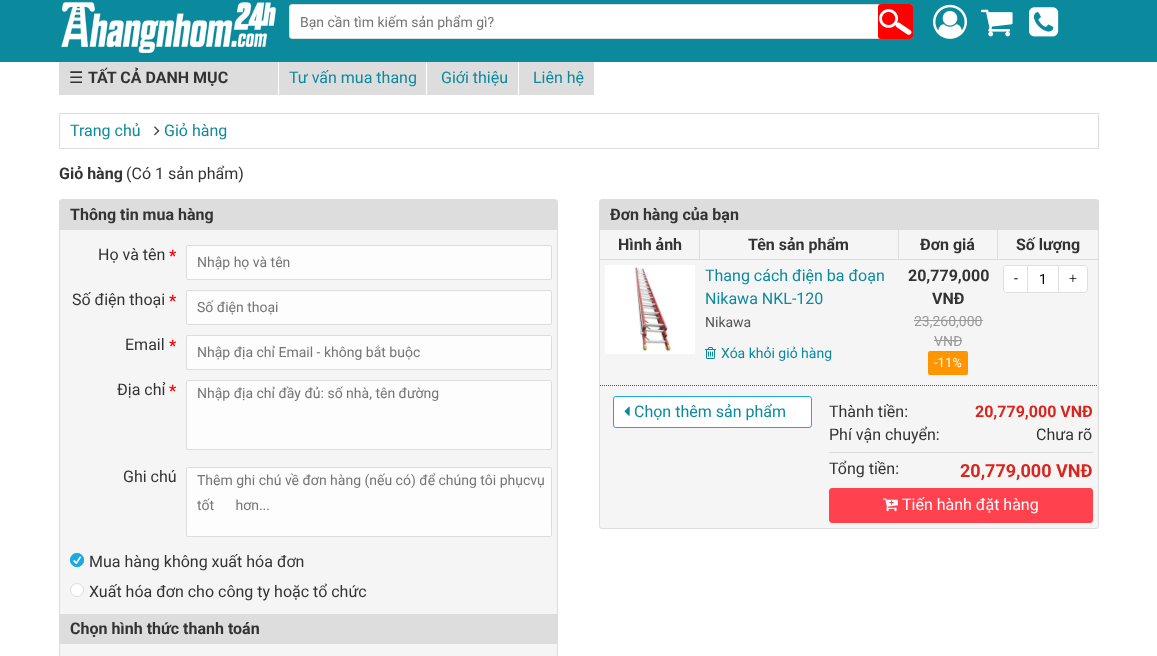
<svg xmlns="http://www.w3.org/2000/svg" width="1157" height="656" viewBox="0 0 1157 656">
  <rect width="100%" height="100%" fill="#ffffff"/>
  <rect x="0" y="0" width="1157" height="62" fill="#0c8a9d"/>
  <image x="61" y="2" width="215" height="51" href="img1.png"/>
  <rect x="289.5" y="4.5" width="623" height="34" rx="2.5" fill="#ffffff" stroke="#dddddd"/>
  <text x="300" y="27" font-family="Roboto" font-size="14" fill="#757575">Bạn cần tìm kiếm sản phẩm gì?</text>
  <rect x="878" y="4" width="35" height="35" rx="3" fill="#ff0000"/>
  <image x="879" y="9" width="33" height="26" href="img2.png"/>
  <image x="933" y="4" width="34" height="35" href="img3.png"/>
  <image x="981" y="9" width="32" height="28" href="img4.png"/>
  <image x="1029" y="7" width="30" height="30" href="img5.png"/>
  <rect x="59" y="62" width="219" height="33" fill="#dddddd"/>
  <text x="69" y="83" font-family="DejaVu Sans" font-size="16" fill="#333333">☰</text>
  <text x="88" y="83" font-family="Roboto" font-size="16" font-weight="bold" fill="#333333">TẤT CẢ DANH MỤC</text>
  <rect x="279" y="62" width="315" height="33" fill="#dddddd"/>
  <rect x="426" y="62" width="1" height="33" fill="#ffffff"/>
  <text x="289" y="83" font-family="Roboto" font-size="16" fill="#0c8a9d">Tư vấn mua thang</text>
  <rect x="518" y="62" width="1" height="33" fill="#ffffff"/>
  <text x="441" y="83" font-family="Roboto" font-size="16" fill="#0c8a9d">Giới thiệu</text>
  <text x="533" y="83" font-family="Roboto" font-size="16" fill="#0c8a9d">Liên hệ</text>
  <rect x="59.5" y="113.5" width="1039" height="35" fill="none" stroke="#dddddd"/>
  <text x="70" y="136" font-family="Roboto" font-size="16" fill="#0c8a9d">Trang chủ</text>
  <image x="154" y="126" width="6" height="10" href="img6.png"/>
  <text x="164" y="136" font-family="Roboto" font-size="16" fill="#0c8a9d">Giỏ hàng</text>
  <text x="59" y="179" font-family="Roboto" font-size="16" font-weight="bold" fill="#333333">Giỏ hàng</text>
  <text x="126" y="179" font-family="Roboto" font-size="16" fill="#333333">(Có 1 sản phẩm)</text>
  <rect x="59.5" y="199.5" width="498" height="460" rx="2.5" fill="#f5f5f5" stroke="#dddddd"/>
  <rect x="60" y="200" width="497" height="30" fill="#dddddd"/>
  <text x="70" y="220" font-family="Roboto" font-size="16" font-weight="bold" fill="#333333">Thông tin mua hàng</text>
  <text x="98" y="260" font-family="Roboto" font-size="16" fill="#333333">Họ và tên</text>
  <text x="169" y="261" font-family="Roboto" font-size="16" font-weight="bold" fill="#ff0000">*</text>
  <rect x="186.5" y="245.5" width="365" height="34" rx="1.5" fill="#fdfdfd" stroke="#dddddd"/>
  <text x="197" y="267" font-family="Roboto" font-size="14" fill="#757575">Nhập họ và tên</text>
  <text x="72" y="305" font-family="Roboto" font-size="16" fill="#333333">Số điện thoại</text>
  <text x="169" y="306" font-family="Roboto" font-size="16" font-weight="bold" fill="#ff0000">*</text>
  <rect x="186.5" y="290.5" width="365" height="34" rx="1.5" fill="#fdfdfd" stroke="#dddddd"/>
  <text x="197" y="312" font-family="Roboto" font-size="14" fill="#757575">Số điện thoại</text>
  <text x="125" y="350" font-family="Roboto" font-size="16" fill="#333333">Email</text>
  <text x="169" y="351" font-family="Roboto" font-size="16" font-weight="bold" fill="#ff0000">*</text>
  <rect x="186.5" y="335.5" width="365" height="34" rx="1.5" fill="#fdfdfd" stroke="#dddddd"/>
  <text x="197" y="357" font-family="Roboto" font-size="14" fill="#757575">Nhập địa chỉ Email - không bắt buộc</text>
  <text x="117" y="395" font-family="Roboto" font-size="16" fill="#333333">Địa chỉ</text>
  <text x="169" y="396" font-family="Roboto" font-size="16" font-weight="bold" fill="#ff0000">*</text>
  <rect x="186.5" y="380.5" width="365" height="69" rx="1.5" fill="#fdfdfd" stroke="#dddddd"/>
  <text x="197" y="398" font-family="Roboto" font-size="14" fill="#757575">Nhập địa chỉ đầy đủ: số nhà, tên đường</text>
  <text x="123" y="482" font-family="Roboto" font-size="16" fill="#333333">Ghi chú</text>
  <rect x="186.5" y="467.5" width="365" height="69" rx="1.5" fill="#fdfdfd" stroke="#dddddd"/>
  <text x="197" y="485" font-family="Roboto" font-size="14" fill="#757575">Thêm ghi chú về đơn hàng (nếu có) để chúng tôi phụcvụ</text>
  <text x="197" y="510" word-spacing="18" font-family="Roboto" font-size="14" fill="#757575">tốt hơn...</text>
  <image x="70" y="553" width="14" height="14" href="img7.png"/>
  <circle cx="77" cy="560" r="6.5" fill="none" stroke="#19abe0"/>
  <text x="89" y="567" font-family="Roboto" font-size="16" fill="#333333">Mua hàng không xuất hóa đơn</text>
  <circle cx="77" cy="590" r="6.5" fill="#ffffff" stroke="#dddddd"/>
  <text x="89" y="597" font-family="Roboto" font-size="16" fill="#333333">Xuất hóa đơn cho công ty hoặc tổ chức</text>
  <rect x="60" y="614" width="497" height="30" fill="#dddddd"/>
  <text x="70" y="634" font-family="Roboto" font-size="16" font-weight="bold" fill="#333333">Chọn hình thức thanh toán</text>
  <rect x="599.5" y="199.5" width="499" height="329" rx="2.5" fill="#f5f5f5" stroke="#dddddd"/>
  <rect x="600" y="200" width="498" height="30" fill="#dddddd"/>
  <text x="610" y="220" font-family="Roboto" font-size="16" font-weight="bold" fill="#333333">Đơn hàng của bạn</text>
  <rect x="600" y="259" width="498" height="1" fill="#dddddd"/>
  <rect x="699" y="230" width="1" height="29" fill="#dddddd"/>
  <text x="618" y="250" font-family="Roboto" font-size="16" font-weight="bold" fill="#333333">Hình ảnh</text>
  <rect x="898" y="230" width="1" height="29" fill="#dddddd"/>
  <text x="748" y="250" font-family="Roboto" font-size="16" font-weight="bold" fill="#333333">Tên sản phẩm</text>
  <rect x="997" y="230" width="1" height="29" fill="#dddddd"/>
  <text x="920" y="250" font-family="Roboto" font-size="16" font-weight="bold" fill="#333333">Đơn giá</text>
  <text x="1016" y="250" font-family="Roboto" font-size="16" font-weight="bold" fill="#333333">Số lượng</text>
  <path d="M600 385.5H1098" fill="none" stroke="#555555" stroke-dasharray="1 1"/>
  <image x="605" y="265" width="90" height="89" href="img8.png"/>
  <text x="705" y="281" font-family="Roboto" font-size="16" fill="#0c8a9d">Thang cách điện ba đoạn</text>
  <text x="705" y="304" font-family="Roboto" font-size="16" fill="#0c8a9d">Nikawa NKL-120</text>
  <text x="705" y="327" font-family="Roboto" font-size="14" fill="#555555">Nikawa</text>
  <image x="705" y="347" width="11" height="12" href="img9.png"/>
  <text x="721" y="358" font-family="Roboto" font-size="14" fill="#0c8a9d">Xóa khỏi giỏ hàng</text>
  <text x="908" y="281" font-family="Roboto" font-size="16" font-weight="bold" fill="#333333">20,779,000</text>
  <text x="932" y="304" font-family="Roboto" font-size="16" font-weight="bold" fill="#333333">VNĐ</text>
  <text x="914" y="326" font-family="Roboto" font-size="14" fill="#999999">23,260,000</text>
  <rect x="914" y="320" width="69" height="1" fill="#999999"/>
  <text x="934" y="346" font-family="Roboto" font-size="14" fill="#999999">VNĐ</text>
  <rect x="934" y="340" width="28" height="1" fill="#999999"/>
  <rect x="928" y="351" width="40" height="24" rx="2" fill="#ff9601"/>
  <text x="934" y="367" font-family="Roboto" font-size="13" fill="#ffffff">-11%</text>
  <path d="M1007 265.5H1027.5V292.5H1007C1005 292.5 1003.5 291 1003.5 289V269C1003.5 267 1005 265.5 1007 265.5Z" fill="#ffffff" stroke="#dfdfdf"/>
  <text x="1014" y="283" font-family="Roboto" font-size="14" fill="#000000">-</text>
  <rect x="1028" y="266" width="30" height="26" fill="#ffffff"/>
  <rect x="1028" y="265" width="30" height="1" fill="#dfdfdf"/>
  <rect x="1028" y="292" width="30" height="1" fill="#dfdfdf"/>
  <text x="1039" y="284" font-family="Roboto" font-size="14" fill="#000000">1</text>
  <path d="M1058.5 265.5H1084C1086 265.5 1087.5 267 1087.5 269V289C1087.5 291 1086 292.5 1084 292.5H1058.5Z" fill="#ffffff" stroke="#dfdfdf"/>
  <text x="1069" y="283" font-family="Roboto" font-size="14" font-weight="300" fill="#000000">+</text>
  <rect x="613.5" y="396.5" width="198" height="31" rx="2.5" fill="#ffffff" stroke="#19abe0"/>
  <image x="624" y="406" width="6" height="10" href="img10.png"/>
  <text x="634" y="417" font-family="Roboto" font-size="16" fill="#0c8a9d">Chọn thêm sản phẩm</text>
  <text x="829" y="417" font-family="Roboto" font-size="16" fill="#333333">Thành tiền:</text>
  <text x="975" y="417" font-family="Roboto" font-size="16" font-weight="bold" fill="#da251c">20,779,000 VNĐ</text>
  <text x="829" y="440" font-family="Roboto" font-size="16" fill="#333333">Phí vận chuyển:</text>
  <text x="1036" y="440" font-family="Roboto" font-size="16" fill="#333333">Chưa rõ</text>
  <rect x="829" y="452" width="264" height="1" fill="#dddddd"/>
  <text x="829" y="474" font-family="Roboto" font-size="16" fill="#333333">Tổng tiền:</text>
  <text x="960" y="477" font-family="Roboto" font-size="18" font-weight="bold" fill="#da251c">20,779,000 VNĐ</text>
  <rect x="829.5" y="488.5" width="263" height="34" rx="2.5" fill="#ff424e" stroke="#ff424e"/>
  <image x="883" y="498" width="15" height="14" href="img11.png"/>
  <text x="902" y="510" font-family="Roboto" font-size="16" fill="#ffffff">Tiến hành đặt hàng</text>
</svg>
